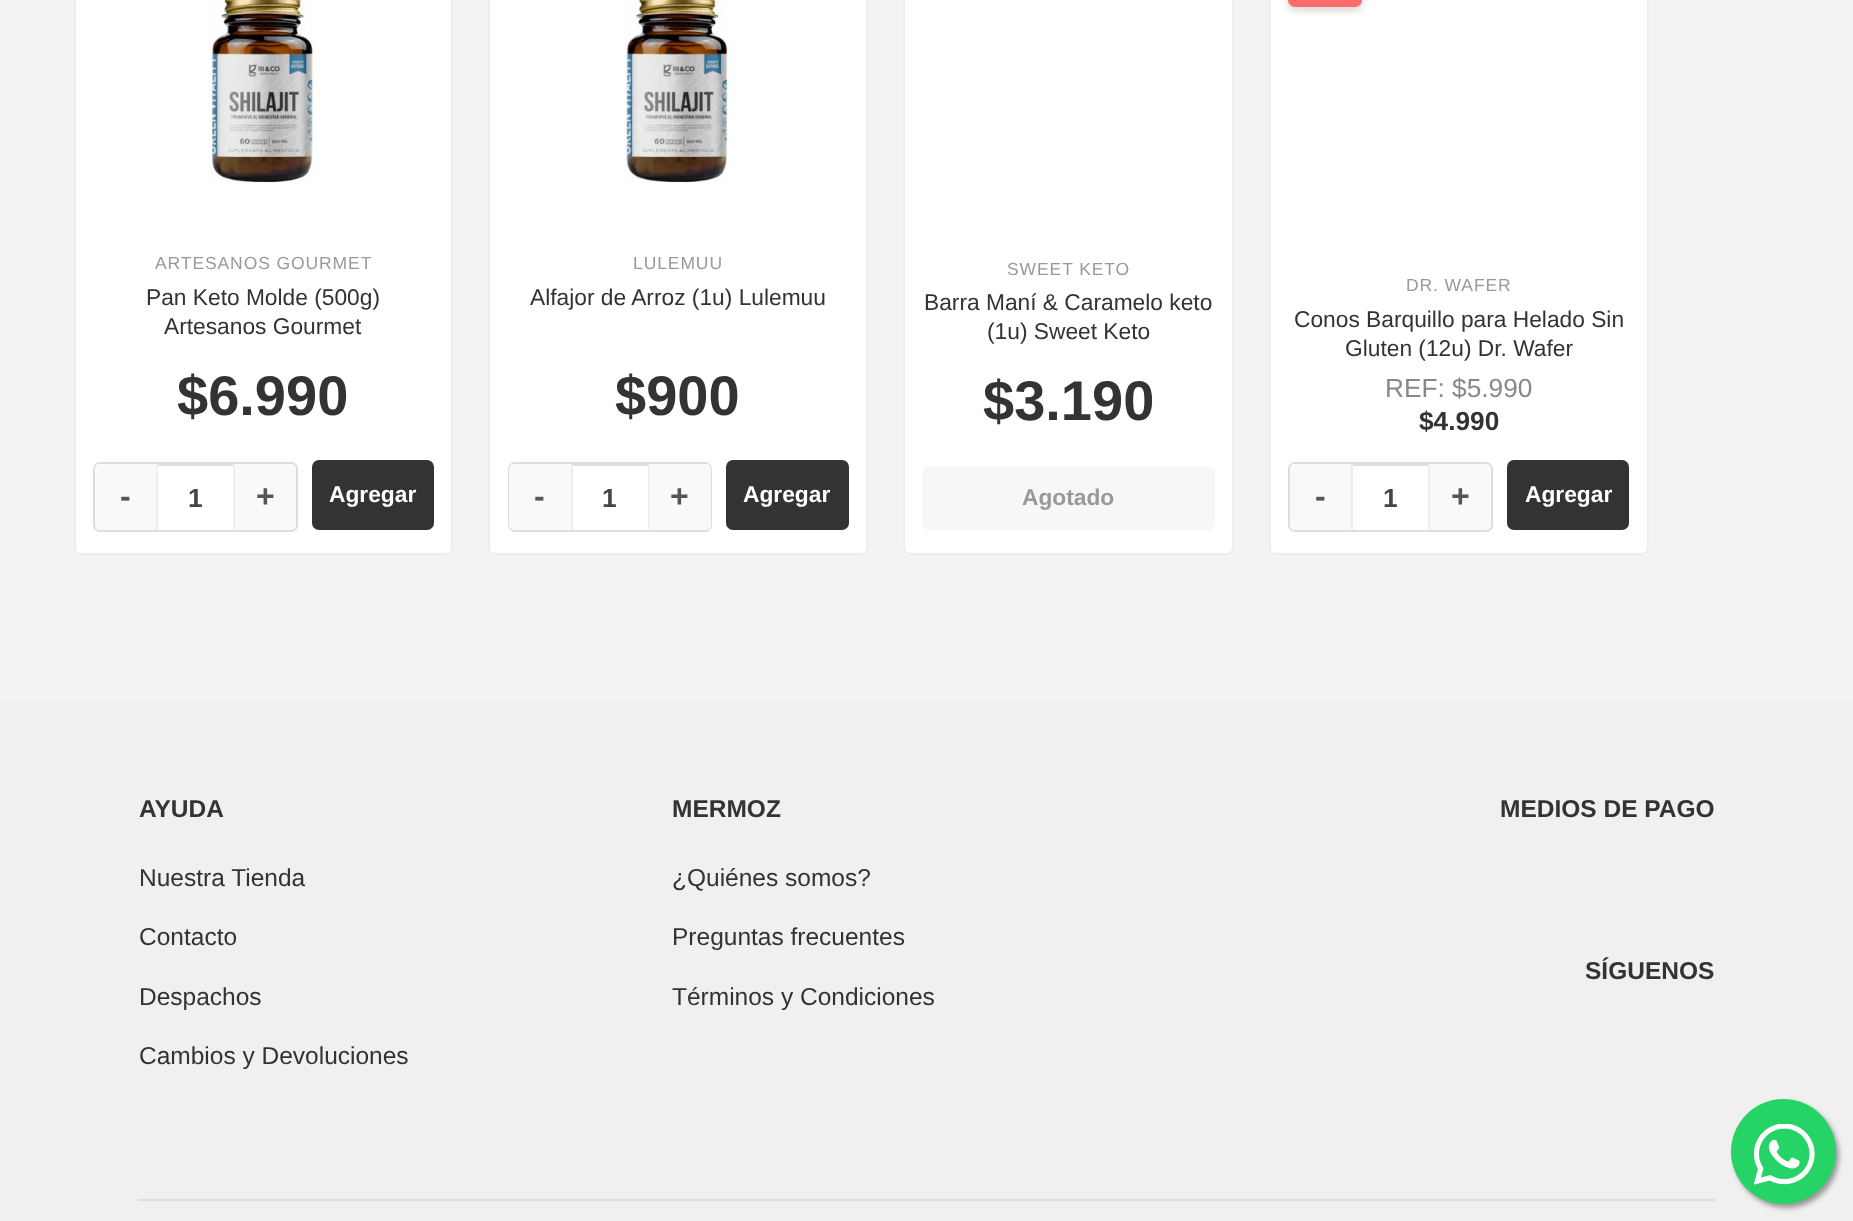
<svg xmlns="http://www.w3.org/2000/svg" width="1853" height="1221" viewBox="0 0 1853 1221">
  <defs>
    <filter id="blur1" x="-50%" y="-200%" width="200%" height="500%"><feGaussianBlur stdDeviation="3.5"/></filter>
    <filter id="blur2" x="-50%" y="-200%" width="200%" height="500%"><feGaussianBlur stdDeviation="2.5"/></filter>
  </defs>
  <rect width="100%" height="100%" fill="#f3f3f3"/>
  <rect x="75" y="-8" width="377" height="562" rx="6" fill="#ffffff" stroke="#eeeeee" stroke-width="2"/>
  <image x="209" y="0" width="107" height="183" href="img1.png"/>
  <text x="155" y="269" font-family="Liberation Sans" font-size="17.5" letter-spacing="0.9" fill="#999999">ARTESANOS GOURMET</text>
  <text x="146" y="305" font-family="Liberation Sans" font-size="22.75" fill="#333333">Pan Keto Molde (500g)</text>
  <text x="164" y="334" font-family="Liberation Sans" font-size="22.75" fill="#333333">Artesanos Gourmet</text>
  <text x="177" y="415" font-family="Liberation Sans" font-size="56" font-weight="bold" fill="#333333">$6.990</text>
  <rect x="94" y="463" width="203" height="68" rx="6" fill="none" stroke="#dddddd" stroke-width="2"/>
  <path d="M100 464H156V530H100C97 530 95 528 95 525V469C95 466 97 464 100 464Z" fill="#f9f9f9"/>
  <text x="120" y="507" font-family="Liberation Sans" font-size="32" font-weight="bold" fill="#555555">-</text>
  <rect x="158" y="464" width="75" height="2" fill="#dfdfdf"/>
  <rect x="233" y="464" width="2" height="66" fill="#eeeeee"/>
  <rect x="156" y="464" width="2" height="66" fill="#eeeeee"/>
  <text x="188" y="507" font-family="Liberation Sans" font-size="26.25" font-weight="bold" fill="#43454b">1</text>
  <path d="M235 464H291C294 464 296 466 296 469V525C296 528 294 530 291 530H235Z" fill="#f9f9f9"/>
  <text x="256" y="507" font-family="Liberation Sans" font-size="32" font-weight="bold" fill="#555555">+</text>
  <rect x="312" y="460" width="122" height="70" rx="7" fill="#333333"/>
  <text x="329" y="502" font-family="Liberation Sans" font-size="22.75" font-weight="bold" fill="#ffffff">Agregar</text>
  <rect x="489" y="-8" width="378" height="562" rx="6" fill="#ffffff" stroke="#eeeeee" stroke-width="2"/>
  <image x="624" y="0" width="106" height="183" href="img2.png"/>
  <text x="633" y="269" font-family="Liberation Sans" font-size="17.5" letter-spacing="0.9" fill="#999999">LULEMUU</text>
  <text x="530" y="305" font-family="Liberation Sans" font-size="22.75" fill="#333333">Alfajor de Arroz (1u) Lulemuu</text>
  <text x="615" y="415" font-family="Liberation Sans" font-size="56" font-weight="bold" fill="#333333">$900</text>
  <rect x="509" y="463" width="202" height="68" rx="6" fill="none" stroke="#dddddd" stroke-width="2"/>
  <path d="M514 464H571V530H514C511 530 509 528 509 525V469C509 466 511 464 514 464Z" fill="#f9f9f9"/>
  <text x="534" y="507" font-family="Liberation Sans" font-size="32" font-weight="bold" fill="#555555">-</text>
  <rect x="572" y="464" width="76" height="2" fill="#dfdfdf"/>
  <rect x="648" y="464" width="1" height="66" fill="#eeeeee"/>
  <rect x="571" y="464" width="2" height="66" fill="#eeeeee"/>
  <text x="602" y="507" font-family="Liberation Sans" font-size="26.25" font-weight="bold" fill="#43454b">1</text>
  <path d="M649 464H706C709 464 711 466 711 469V525C711 528 709 530 706 530H649Z" fill="#f9f9f9"/>
  <text x="670" y="507" font-family="Liberation Sans" font-size="32" font-weight="bold" fill="#555555">+</text>
  <rect x="726" y="460" width="123" height="70" rx="7" fill="#333333"/>
  <text x="743" y="502" font-family="Liberation Sans" font-size="22.75" font-weight="bold" fill="#ffffff">Agregar</text>
  <rect x="904" y="-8" width="329" height="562" rx="6" fill="#ffffff" stroke="#eeeeee" stroke-width="2"/>
  <text x="1007" y="275" font-family="Liberation Sans" font-size="17.5" letter-spacing="0.9" fill="#999999">SWEET KETO</text>
  <text x="924" y="310" font-family="Liberation Sans" font-size="22.75" fill="#333333">Barra Maní &amp; Caramelo keto</text>
  <text x="987" y="339" font-family="Liberation Sans" font-size="22.75" fill="#333333">(1u) Sweet Keto</text>
  <text x="983" y="420" font-family="Liberation Sans" font-size="56" font-weight="bold" fill="#333333">$3.190</text>
  <rect x="922" y="466" width="293" height="64" rx="7" fill="#f7f7f7"/>
  <text x="1022" y="505" font-family="Liberation Sans" font-size="22.75" font-weight="bold" fill="#999999">Agotado</text>
  <rect x="1270" y="-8" width="378" height="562" rx="6" fill="#ffffff" stroke="#eeeeee" stroke-width="2"/>
  <rect x="1288" y="-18" width="74" height="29" rx="7" fill="#000000" fill-opacity="0.15" filter="url(#blur1)"/>
  <rect x="1288" y="-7" width="74" height="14" rx="7" fill="#ff6b6b"/>
  <text x="1406" y="291" font-family="Liberation Sans" font-size="17.5" letter-spacing="0.9" fill="#999999">DR. WAFER</text>
  <text x="1294" y="327" font-family="Liberation Sans" font-size="22.75" fill="#333333">Conos Barquillo para Helado Sin</text>
  <text x="1345" y="356" font-family="Liberation Sans" font-size="22.75" fill="#333333">Gluten (12u) Dr. Wafer</text>
  <text x="1385" y="397" font-family="Liberation Sans" font-size="26.25" fill="#888888">REF: $5.990</text>
  <text x="1419" y="430" font-family="Liberation Sans" font-size="26.25" font-weight="bold" fill="#333333">$4.990</text>
  <rect x="1289" y="463" width="203" height="68" rx="6" fill="none" stroke="#dddddd" stroke-width="2"/>
  <path d="M1295 464H1351V530H1295C1292 530 1290 528 1290 525V469C1290 466 1292 464 1295 464Z" fill="#f9f9f9"/>
  <text x="1315" y="507" font-family="Liberation Sans" font-size="32" font-weight="bold" fill="#555555">-</text>
  <rect x="1353" y="464" width="75" height="2" fill="#dfdfdf"/>
  <rect x="1428" y="464" width="2" height="66" fill="#eeeeee"/>
  <rect x="1351" y="464" width="2" height="66" fill="#eeeeee"/>
  <text x="1383" y="507" font-family="Liberation Sans" font-size="26.25" font-weight="bold" fill="#43454b">1</text>
  <path d="M1430 464H1486C1489 464 1491 466 1491 469V525C1491 528 1489 530 1486 530H1430Z" fill="#f9f9f9"/>
  <text x="1451" y="507" font-family="Liberation Sans" font-size="32" font-weight="bold" fill="#555555">+</text>
  <rect x="1507" y="460" width="122" height="70" rx="7" fill="#333333"/>
  <text x="1525" y="502" font-family="Liberation Sans" font-size="22.75" font-weight="bold" fill="#ffffff">Agregar</text>
  <rect x="0" y="702" width="1853" height="519" fill="#f0f0f0"/>
  <text x="139" y="817" font-family="Liberation Sans" font-size="24.5" font-weight="bold" fill="#333333">AYUDA</text>
  <text x="139" y="886" font-family="Liberation Sans" font-size="24.5" fill="#333333">Nuestra Tienda</text>
  <text x="139" y="945" font-family="Liberation Sans" font-size="24.5" fill="#333333">Contacto</text>
  <text x="139" y="1005" font-family="Liberation Sans" font-size="24.5" fill="#333333">Despachos</text>
  <text x="139" y="1064" font-family="Liberation Sans" font-size="24.5" fill="#333333">Cambios y Devoluciones</text>
  <text x="672" y="817" font-family="Liberation Sans" font-size="24.5" font-weight="bold" fill="#333333">MERMOZ</text>
  <text x="672" y="886" font-family="Liberation Sans" font-size="24.5" fill="#333333">¿Quiénes somos?</text>
  <text x="672" y="945" font-family="Liberation Sans" font-size="24.5" fill="#333333">Preguntas frecuentes</text>
  <text x="672" y="1005" font-family="Liberation Sans" font-size="24.5" fill="#333333">Términos y Condiciones</text>
  <text x="1500" y="817" font-family="Liberation Sans" font-size="24.5" font-weight="bold" fill="#333333">MEDIOS DE PAGO</text>
  <text x="1585" y="979" font-family="Liberation Sans" font-size="24.5" font-weight="bold" fill="#333333">SÍGUENOS</text>
  <rect x="138" y="1199" width="1577" height="2" fill="#dddddd"/>
  <rect x="1734" y="1103" width="105" height="105" rx="52.5" fill="#999999" filter="url(#blur2)"/>
  <circle cx="1783.5" cy="1151.5" r="52.5" fill="#25d366"/>
  <image x="1754" y="1124" width="61" height="61" href="img3.png"/>
</svg>
